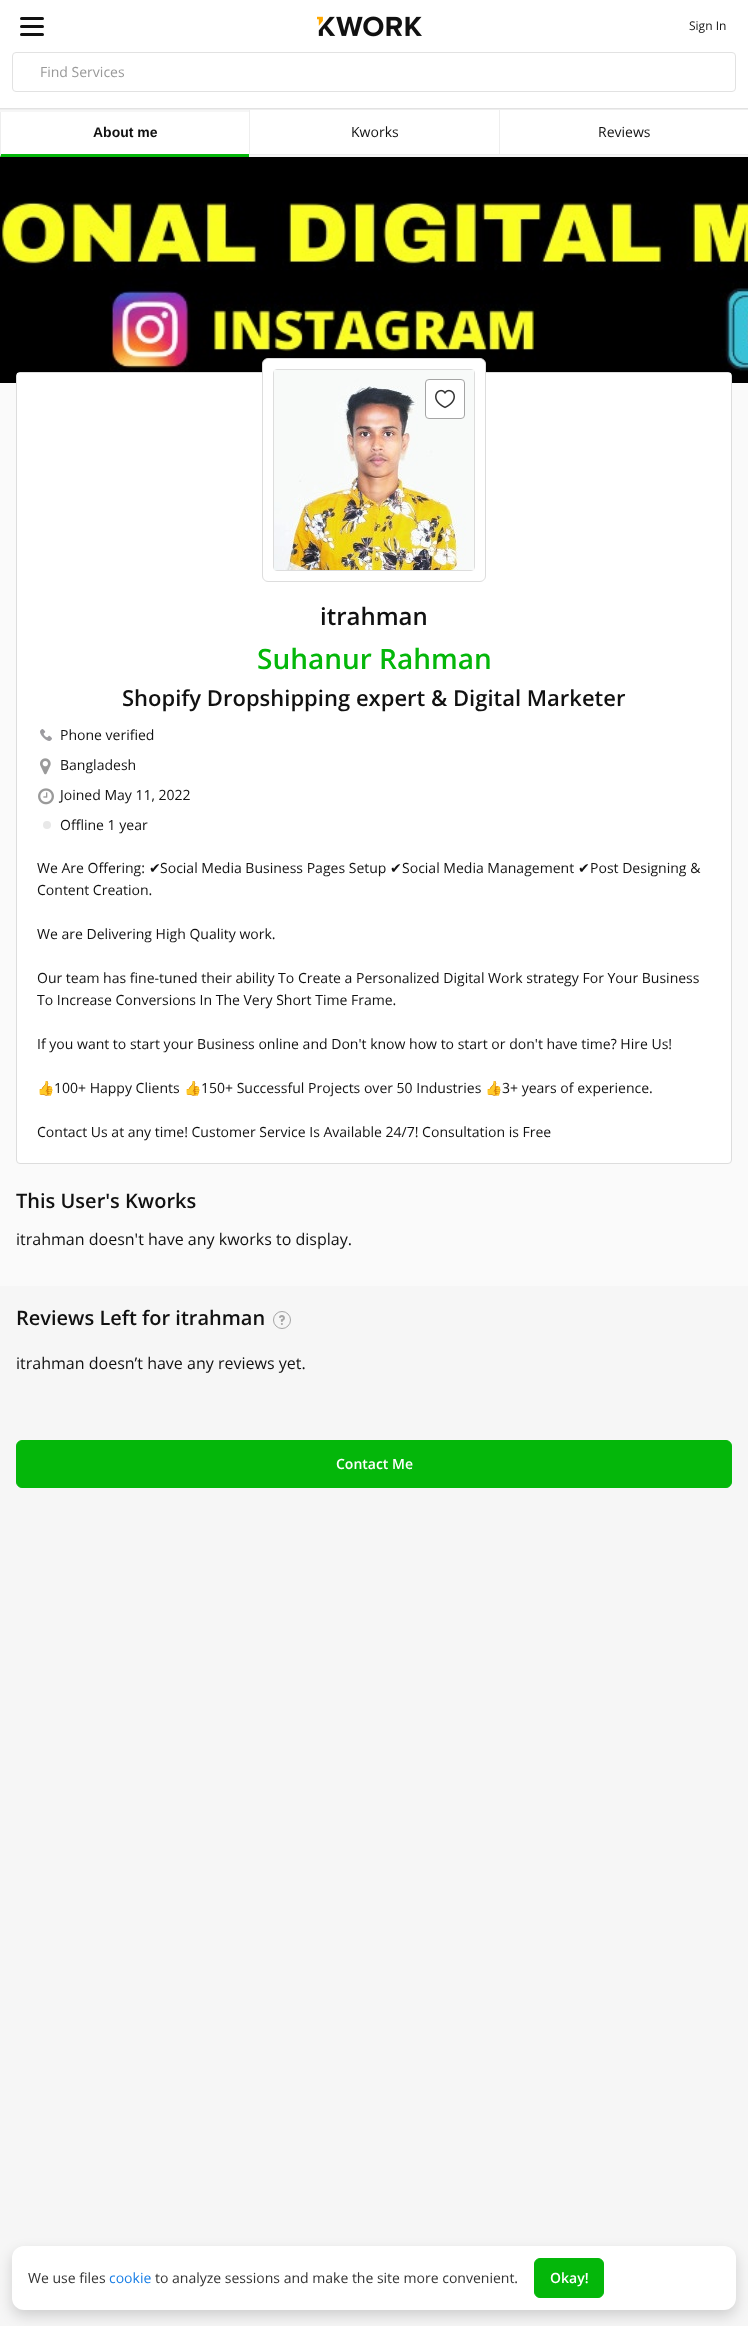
<svg xmlns="http://www.w3.org/2000/svg" width="748" height="2326" viewBox="0 0 748 2326">
  <defs>
    <filter id="blur1" x="-50%" y="-200%" width="200%" height="500%"><feGaussianBlur stdDeviation="7"/></filter>
  </defs>
  <rect width="100%" height="100%" fill="#f6f6f6"/>
  <rect x="0" y="0" width="748" height="108" fill="#ffffff"/>
  <rect x="0" y="108" width="748" height="1" fill="#e2e2e2"/>
  <rect x="20" y="17" width="24" height="3" rx="1.5" fill="#111111"/>
  <rect x="20" y="25" width="24" height="3" rx="1.5" fill="#111111"/>
  <rect x="20" y="33" width="24" height="3" rx="1.5" fill="#111111"/>
  <image x="317" y="16" width="105" height="21" href="img1.png"/>
  <text x="689" y="30" font-family="Open Sans" font-size="12" fill="#111111">Sign In</text>
  <rect x="12.5" y="52.5" width="723" height="39" rx="3.5" fill="none" stroke="#e2e2e2"/>
  <text x="40" y="77" font-family="Open Sans" font-size="14" fill="#999999">Find Services</text>
  <rect x="0" y="109" width="748" height="1" fill="#eeeeee"/>
  <rect x="0" y="112" width="249" height="45" fill="#ffffff"/>
  <path d="M249 157H0L1 154H249Z" fill="#04b70a"/>
  <path d="M0 157V112H1V154Z" fill="#eeeeee"/>
  <text x="93" y="137" font-family="Liberation Sans" font-size="14" font-weight="bold" fill="#111111">About me</text>
  <rect x="250" y="110" width="249" height="44" fill="#ffffff"/>
  <rect x="249" y="154" width="499" height="1" fill="#eeeeee"/>
  <rect x="249" y="110" width="1" height="45" fill="#eeeeee"/>
  <text x="351" y="137" font-family="Open Sans" font-size="14" fill="#111111">Kworks</text>
  <rect x="500" y="110" width="248" height="44" fill="#ffffff"/>
  <rect x="499" y="110" width="1" height="45" fill="#eeeeee"/>
  <text x="598" y="137" font-family="Open Sans" font-size="14" fill="#111111">Reviews</text>
  <image x="0" y="157" width="748" height="226" href="img2.png"/>
  <rect x="0" y="383" width="748" height="903" fill="#fafafa"/>
  <rect x="16.5" y="372.5" width="715" height="791" rx="3.5" fill="#ffffff" stroke="#dddddd"/>
  <rect x="17" y="373" width="714" height="3" fill="#ffffff"/>
  <rect x="262.5" y="358.5" width="223" height="223" rx="5.5" fill="#ffffff" stroke="#dddddd"/>
  <rect x="273.5" y="369.5" width="201" height="201" rx="3.5" fill="none" stroke="#dddddd"/>
  <image x="274" y="370" width="200" height="200" href="img3.png"/>
  <rect x="425.5" y="379.5" width="39" height="39" rx="3.5" fill="#ffffff" stroke="#a5a5a5"/>
  <image x="435" y="389" width="20" height="20" href="img4.png"/>
  <text x="320" y="625" font-family="Open Sans" font-size="24" font-weight="600" fill="#111111">itrahman</text>
  <text x="257" y="669" font-family="Open Sans" font-size="28" font-weight="600" fill="#04b70a">Suhanur Rahman</text>
  <text x="122" y="706" font-family="Open Sans" font-size="22" font-weight="600" fill="#111111">Shopify Dropshipping expert &amp; Digital Marketer</text>
  <image x="40" y="729" width="12" height="12" href="img5.png"/>
  <text x="60" y="740" font-family="Open Sans" font-size="14" fill="#111111">Phone verified</text>
  <image x="40" y="758" width="11" height="17" href="img6.png"/>
  <text x="60" y="770" font-family="Open Sans" font-size="14" fill="#111111">Bangladesh</text>
  <image x="38" y="788" width="16" height="17" href="img7.png"/>
  <text x="60" y="800" font-family="Open Sans" font-size="14" fill="#111111">Joined May 11, 2022</text>
  <circle cx="47" cy="825" r="4" fill="#e8e8e8"/>
  <text x="60" y="830" font-family="Open Sans" font-size="14" fill="#111111">Offline 1 year</text>
  <text x="37" y="873" font-family="Open Sans" font-size="14" fill="#111111">We Are Offering:</text>
  <text x="149" y="873" font-family="DejaVu Sans" font-size="14" fill="#111111">✔</text>
  <text x="160" y="873" font-family="Open Sans" font-size="14" fill="#111111">Social Media Business Pages Setup</text>
  <text x="390" y="873" font-family="DejaVu Sans" font-size="14" fill="#111111">✔</text>
  <text x="402" y="873" font-family="Open Sans" font-size="14" fill="#111111">Social Media Management</text>
  <text x="578" y="873" font-family="DejaVu Sans" font-size="14" fill="#111111">✔</text>
  <text x="590" y="873" font-family="Open Sans" font-size="14" fill="#111111">Post Designing &amp;</text>
  <text x="37" y="895" font-family="Open Sans" font-size="14" fill="#111111">Content Creation.</text>
  <text x="37" y="939" font-family="Open Sans" font-size="14" fill="#111111">We are Delivering High Quality work.</text>
  <text x="37" y="983" font-family="Open Sans" font-size="14" fill="#111111">Our team has fine-tuned their ability To Create a Personalized Digital Work strategy For Your Business</text>
  <text x="37" y="1005" font-family="Open Sans" font-size="14" fill="#111111">To Increase Conversions In The Very Short Time Frame.</text>
  <text x="37" y="1049" font-family="Open Sans" font-size="14" fill="#111111">If you want to start your Business online and Don't know how to start or don't have time? Hire Us!</text>
  <text x="37" y="1093" font-family="Noto Color Emoji" font-size="14" fill="#111111">👍</text>
  <text x="54" y="1093" font-family="Open Sans" font-size="14" fill="#111111">100+ Happy Clients</text>
  <text x="184" y="1093" font-family="Noto Color Emoji" font-size="14" fill="#111111">👍</text>
  <text x="201" y="1093" font-family="Open Sans" font-size="14" fill="#111111">150+ Successful Projects over 50 Industries</text>
  <text x="485" y="1093" font-family="Noto Color Emoji" font-size="14" fill="#111111">👍</text>
  <text x="502" y="1093" font-family="Open Sans" font-size="14" fill="#111111">3+ years of experience.</text>
  <text x="37" y="1137" font-family="Open Sans" font-size="14" fill="#111111">Contact Us at any time! Customer Service Is Available 24/7! Consultation is Free</text>
  <text x="16" y="1208" font-family="Open Sans" font-size="20" font-weight="600" fill="#111111">This User's Kworks</text>
  <text x="16" y="1245" font-family="Open Sans" font-size="16" fill="#111111">itrahman doesn't have any kworks to display.</text>
  <text x="16" y="1325" font-family="Open Sans" font-size="20" font-weight="600" fill="#111111">Reviews Left for itrahman</text>
  <circle cx="282" cy="1320" r="8.5" fill="none" stroke="#a5a5a5"/>
  <image x="279" y="1315" width="6" height="10" href="img8.png"/>
  <text x="16" y="1369" font-family="Open Sans" font-size="16" fill="#111111">itrahman doesn’t have any reviews yet.</text>
  <rect x="16.5" y="1440.5" width="715" height="47" rx="5.5" fill="#04b70a" stroke="#04b70a"/>
  <text x="336" y="1469" font-family="Open Sans" font-size="14" font-weight="600" fill="#ffffff">Contact Me</text>
  <rect x="12" y="2252" width="724" height="64" rx="12" fill="#000000" fill-opacity="0.16" filter="url(#blur1)"/>
  <rect x="12" y="2246" width="724" height="64" rx="12" fill="#ffffff"/>
  <text x="28" y="2283" font-family="Open Sans" font-size="14" fill="#333333">We use files</text>
  <text x="109" y="2283" font-family="Open Sans" font-size="14" fill="#177de5">cookie</text>
  <text x="155" y="2283" font-family="Open Sans" font-size="14" fill="#333333">to analyze sessions and make the site more convenient.</text>
  <rect x="534.5" y="2258.5" width="69" height="39" rx="5.5" fill="#04b70a" stroke="#04b70a"/>
  <text x="550" y="2283" font-family="Open Sans" font-size="14" font-weight="600" fill="#ffffff">Okay!</text>
</svg>
